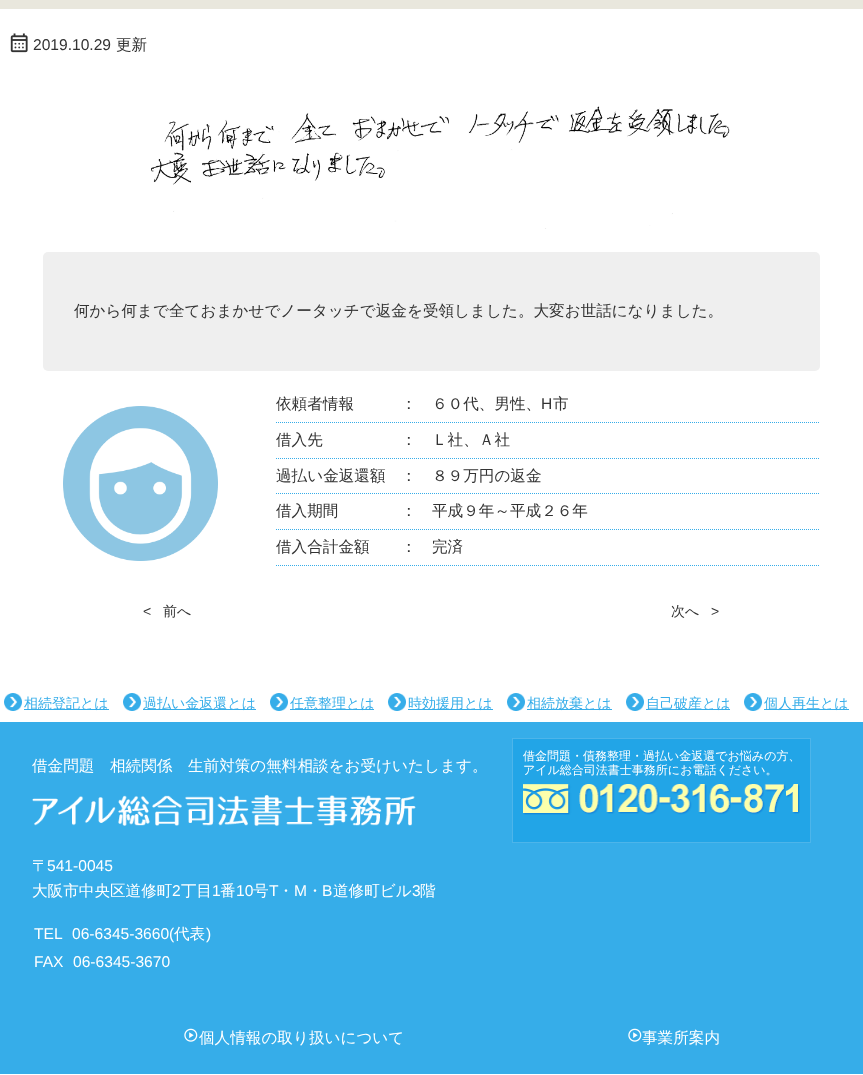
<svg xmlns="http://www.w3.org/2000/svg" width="863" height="1075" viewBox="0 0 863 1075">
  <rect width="100%" height="100%" fill="#ffffff"/>
  <rect x="0" y="0" width="863" height="9" fill="#e9e7dd"/>
  <image x="10" y="33" width="18" height="20" href="img1.png"/>
  <text x="33" y="50" font-family="Liberation Sans" font-size="15.6" fill="#333333">2019.10.29</text>
  <text x="116" y="50" font-family="WenQuanYi Zen Hei" font-size="15.6" font-weight="500" fill="#333333">更新</text>
  <image x="151" y="106" width="579" height="123" href="img2.png"/>
  <rect x="43" y="252" width="777" height="119" rx="5" fill="#efefef"/>
  <text x="74" y="316" font-family="WenQuanYi Zen Hei" font-size="15.6" font-weight="500" fill="#333333">何から何まで全ておまかせでノータッチで返金を受領しました。大変お世話になりました。</text>
  <image x="63" y="406" width="155" height="155" href="img3.png"/>
  <path d="M276 422.5H432" fill="none" stroke="#36ade9" stroke-dasharray="1 1"/>
  <text x="276" y="409" font-family="WenQuanYi Zen Hei" font-size="15.6" font-weight="500" fill="#333333">依頼者情報</text>
  <text x="401" y="409" font-family="WenQuanYi Zen Hei" font-size="15.6" font-weight="500" fill="#333333">：</text>
  <path d="M432 422.5H820" fill="none" stroke="#36ade9" stroke-dasharray="1 1"/>
  <text x="432" y="409" font-family="WenQuanYi Zen Hei" font-size="15.6" font-weight="500" fill="#333333">６０代、男性、</text>
  <text x="541" y="409" font-family="Liberation Sans" font-size="15.6" fill="#333333">H</text>
  <text x="553" y="409" font-family="WenQuanYi Zen Hei" font-size="15.6" font-weight="500" fill="#333333">市</text>
  <path d="M276 458.5H432" fill="none" stroke="#36ade9" stroke-dasharray="1 1"/>
  <text x="276" y="445" font-family="WenQuanYi Zen Hei" font-size="15.6" font-weight="500" fill="#333333">借入先</text>
  <text x="401" y="445" font-family="WenQuanYi Zen Hei" font-size="15.6" font-weight="500" fill="#333333">：</text>
  <path d="M432 458.5H820" fill="none" stroke="#36ade9" stroke-dasharray="1 1"/>
  <text x="432" y="445" font-family="WenQuanYi Zen Hei" font-size="15.6" font-weight="500" fill="#333333">Ｌ社、Ａ社</text>
  <path d="M276 493.5H432" fill="none" stroke="#36ade9" stroke-dasharray="1 1"/>
  <text x="276" y="481" font-family="WenQuanYi Zen Hei" font-size="15.6" font-weight="500" fill="#333333">過払い金返還額</text>
  <text x="401" y="481" font-family="WenQuanYi Zen Hei" font-size="15.6" font-weight="500" fill="#333333">：</text>
  <path d="M432 493.5H820" fill="none" stroke="#36ade9" stroke-dasharray="1 1"/>
  <text x="432" y="481" font-family="WenQuanYi Zen Hei" font-size="15.6" font-weight="500" fill="#333333">８９万円の返金</text>
  <path d="M276 529.5H432" fill="none" stroke="#36ade9" stroke-dasharray="1 1"/>
  <text x="276" y="516" font-family="WenQuanYi Zen Hei" font-size="15.6" font-weight="500" fill="#333333">借入期間</text>
  <text x="401" y="516" font-family="WenQuanYi Zen Hei" font-size="15.6" font-weight="500" fill="#333333">：</text>
  <path d="M432 529.5H820" fill="none" stroke="#36ade9" stroke-dasharray="1 1"/>
  <text x="432" y="516" font-family="WenQuanYi Zen Hei" font-size="15.6" font-weight="500" fill="#333333">平成９年～平成２６年</text>
  <path d="M276 565.5H432" fill="none" stroke="#36ade9" stroke-dasharray="1 1"/>
  <text x="276" y="552" font-family="WenQuanYi Zen Hei" font-size="15.6" font-weight="500" fill="#333333">借入合計金額</text>
  <text x="401" y="552" font-family="WenQuanYi Zen Hei" font-size="15.6" font-weight="500" fill="#333333">：</text>
  <path d="M432 565.5H820" fill="none" stroke="#36ade9" stroke-dasharray="1 1"/>
  <text x="432" y="552" font-family="WenQuanYi Zen Hei" font-size="15.6" font-weight="500" fill="#333333">完済</text>
  <text x="143" y="616" font-family="Liberation Sans" font-size="14" fill="#333333">&lt;</text>
  <text x="163" y="616" font-family="WenQuanYi Zen Hei" font-size="14" font-weight="500" fill="#333333">前へ</text>
  <text x="671" y="616" font-family="WenQuanYi Zen Hei" font-size="14" font-weight="500" fill="#333333">次へ</text>
  <text x="711" y="616" font-family="Liberation Sans" font-size="14" fill="#333333">&gt;</text>
  <image x="4" y="693" width="18" height="18" href="img4.png"/>
  <rect x="24" y="709" width="85" height="1" fill="#36ade9"/>
  <text x="24" y="708" font-family="WenQuanYi Zen Hei" font-size="14" font-weight="500" fill="#36ade9">相続登記とは</text>
  <image x="123" y="693" width="18" height="18" href="img5.png"/>
  <rect x="143" y="709" width="113" height="1" fill="#36ade9"/>
  <text x="143" y="708" font-family="WenQuanYi Zen Hei" font-size="14" font-weight="500" fill="#36ade9">過払い金返還とは</text>
  <image x="270" y="693" width="18" height="18" href="img6.png"/>
  <rect x="290" y="709" width="84" height="1" fill="#36ade9"/>
  <text x="290" y="708" font-family="WenQuanYi Zen Hei" font-size="14" font-weight="500" fill="#36ade9">任意整理とは</text>
  <image x="388" y="693" width="18" height="18" href="img5.png"/>
  <rect x="408" y="709" width="85" height="1" fill="#36ade9"/>
  <text x="408" y="708" font-family="WenQuanYi Zen Hei" font-size="14" font-weight="500" fill="#36ade9">時効援用とは</text>
  <image x="507" y="693" width="18" height="18" href="img6.png"/>
  <rect x="527" y="709" width="85" height="1" fill="#36ade9"/>
  <text x="527" y="708" font-family="WenQuanYi Zen Hei" font-size="14" font-weight="500" fill="#36ade9">相続放棄とは</text>
  <image x="626" y="693" width="18" height="18" href="img5.png"/>
  <rect x="646" y="709" width="84" height="1" fill="#36ade9"/>
  <text x="646" y="708" font-family="WenQuanYi Zen Hei" font-size="14" font-weight="500" fill="#36ade9">自己破産とは</text>
  <image x="744" y="693" width="18" height="18" href="img5.png"/>
  <rect x="764" y="709" width="85" height="1" fill="#36ade9"/>
  <text x="764" y="708" font-family="WenQuanYi Zen Hei" font-size="14" font-weight="500" fill="#36ade9">個人再生とは</text>
  <rect x="0" y="722" width="863" height="352" fill="#36ade9"/>
  <text x="32" y="771" font-family="WenQuanYi Zen Hei" font-size="15.6" font-weight="500" fill="#ffffff">借金問題　相続関係　生前対策の無料相談をお受けいたします。</text>
  <image x="32" y="795" width="384" height="31" href="img7.png"/>
  <text x="32" y="871" font-family="WenQuanYi Zen Hei" font-size="15.6" font-weight="500" fill="#ffffff">〒</text>
  <text x="47" y="871" font-family="Liberation Sans" font-size="15.6" fill="#ffffff">541-0045</text>
  <text x="32" y="896" font-family="WenQuanYi Zen Hei" font-size="15.6" font-weight="500" fill="#ffffff">大阪市中央区道修町</text>
  <text x="172" y="896" font-family="Liberation Sans" font-size="15.6" fill="#ffffff">2</text>
  <text x="181" y="896" font-family="WenQuanYi Zen Hei" font-size="15.6" font-weight="500" fill="#ffffff">丁目</text>
  <text x="212" y="896" font-family="Liberation Sans" font-size="15.6" fill="#ffffff">1</text>
  <text x="220" y="896" font-family="WenQuanYi Zen Hei" font-size="15.6" font-weight="500" fill="#ffffff">番</text>
  <text x="236" y="896" font-family="Liberation Sans" font-size="15.6" fill="#ffffff">10</text>
  <text x="253" y="896" font-family="WenQuanYi Zen Hei" font-size="15.6" font-weight="500" fill="#ffffff">号</text>
  <text x="269" y="896" font-family="Liberation Sans" font-size="15.6" fill="#ffffff">T</text>
  <text x="278" y="896" font-family="WenQuanYi Zen Hei" font-size="15.6" font-weight="500" fill="#ffffff">・</text>
  <text x="294" y="896" font-family="Liberation Sans" font-size="15.6" fill="#ffffff">M</text>
  <text x="307" y="896" font-family="WenQuanYi Zen Hei" font-size="15.6" font-weight="500" fill="#ffffff">・</text>
  <text x="322" y="896" font-family="Liberation Sans" font-size="15.6" fill="#ffffff">B</text>
  <text x="333" y="896" font-family="WenQuanYi Zen Hei" font-size="15.6" font-weight="500" fill="#ffffff">道修町ビル</text>
  <text x="412" y="896" font-family="Liberation Sans" font-size="15.6" fill="#ffffff">3</text>
  <text x="420" y="896" font-family="WenQuanYi Zen Hei" font-size="15.6" font-weight="500" fill="#ffffff">階</text>
  <text x="34" y="939" font-family="Liberation Sans" font-size="15.6" fill="#ffffff">TEL</text>
  <text x="72" y="939" font-family="Liberation Sans" font-size="15.6" fill="#ffffff">06-6345-3660(</text>
  <text x="174" y="939" font-family="WenQuanYi Zen Hei" font-size="15.6" font-weight="500" fill="#ffffff">代表</text>
  <text x="206" y="939" font-family="Liberation Sans" font-size="15.6" fill="#ffffff">)</text>
  <text x="34" y="967" font-family="Liberation Sans" font-size="15.6" fill="#ffffff">FAX</text>
  <text x="73" y="967" font-family="Liberation Sans" font-size="15.6" fill="#ffffff">06-6345-3670</text>
  <rect x="512.5" y="738.5" width="298" height="104" fill="#22a5e7" stroke="#4db5ea"/>
  <text x="523" y="760" font-family="WenQuanYi Zen Hei" font-size="12" font-weight="500" fill="#ffffff">借金問題・債務整理・過払い金返還でお悩みの方、</text>
  <text x="523" y="774" font-family="WenQuanYi Zen Hei" font-size="12" font-weight="500" fill="#ffffff">アイル総合司法書士事務所にお電話ください。</text>
  <image x="523" y="784" width="277" height="31" href="img8.png"/>
  <image x="184" y="1028" width="14" height="14" href="img9.png"/>
  <text x="199" y="1043" font-family="WenQuanYi Zen Hei" font-size="15.6" font-weight="500" fill="#ffffff">個人情報の取り扱いについて</text>
  <image x="628" y="1028" width="14" height="14" href="img9.png"/>
  <text x="642" y="1043" font-family="WenQuanYi Zen Hei" font-size="15.6" font-weight="500" fill="#ffffff">事業所案内</text>
</svg>
